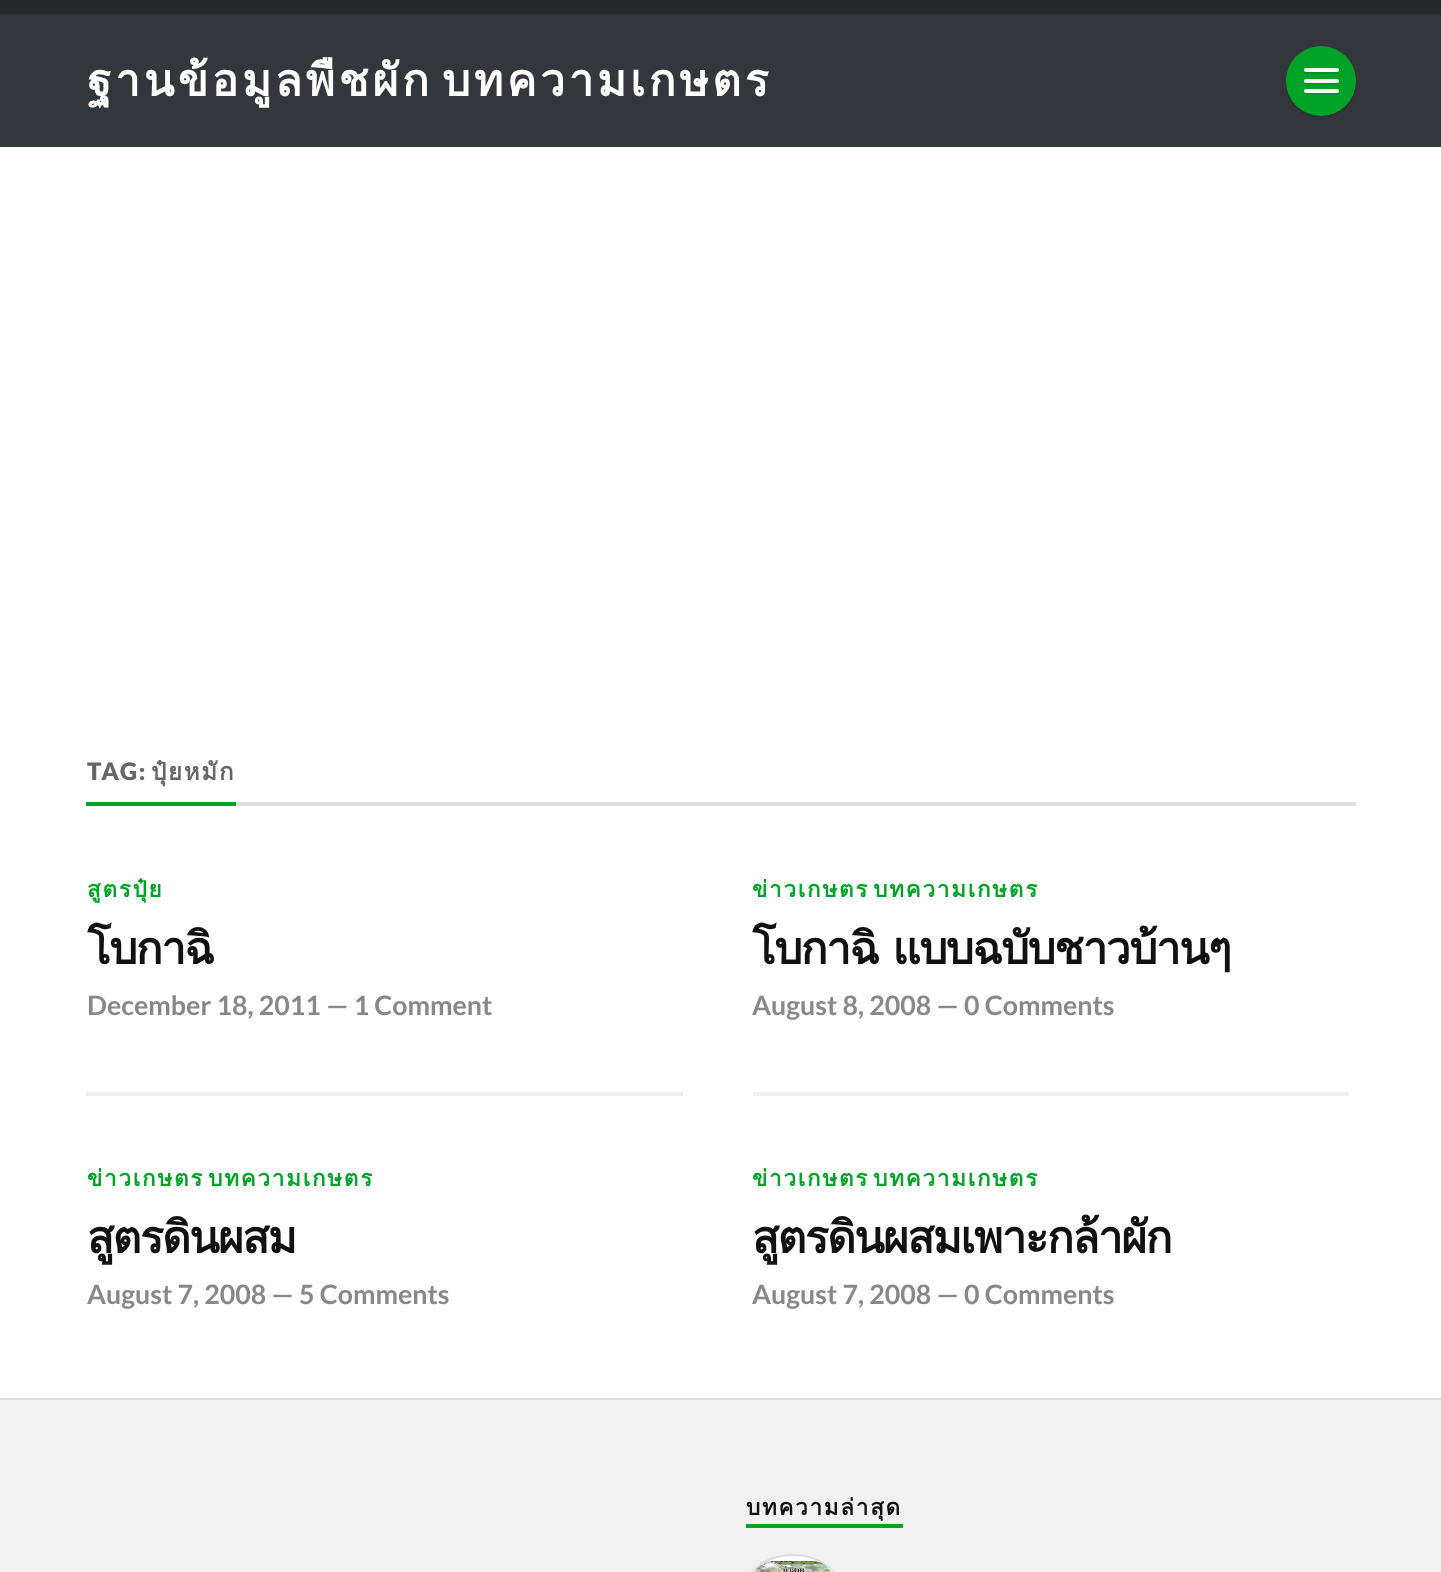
<svg xmlns="http://www.w3.org/2000/svg" width="1441" height="1572" viewBox="0 0 1441 1572">
  <rect width="100%" height="100%" fill="#ffffff"/>
  <rect x="0" y="14" width="1441" height="133" fill="#33363b"/>
  <rect x="0" y="0" width="1441" height="14" fill="#26272b"/>
  <text x="87" y="96" word-spacing="-9" font-family="Loma" font-size="44.6" font-weight="bold" letter-spacing="3.5" fill="#ffffff">ฐานข้อมูลพืชผัก บทความเกษตร</text>
  <path d="M1286 80C1282 115 1329 134 1350 104C1354 98 1356 92 1356 85C1352 117 1310 127 1292 100C1288 94 1286 87 1286 80Z" fill="#2e3135"/>
  <circle cx="1321" cy="81" r="35" fill="#00a328"/>
  <path d="M1304 71C1302.5 75 1310.5 74 1311 74H1332C1333 74 1338.5 75 1339 72.5L1338.5 71L1337.5 71.5H1305.5Z" fill="#009324"/>
  <rect x="1304" y="68" width="35" height="4" rx="2" fill="#ffffff"/>
  <path d="M1304.5 82L1304 83.5C1304.5 86 1310 85 1311 85H1332C1333 85 1338.5 86 1339 83.5C1339 82.5 1339 82 1338.5 81.5C1337 83 1332 82 1332 82C1328.5 82 1305.5 83 1304.5 82Z" fill="#009324"/>
  <rect x="1304" y="79" width="35" height="4" rx="2" fill="#ffffff"/>
  <path d="M1304 92C1302.5 96 1310.5 95 1311 95H1332C1333 95 1338.5 96 1339 93.5L1338.5 92L1337.5 92.5H1305.5Z" fill="#009324"/>
  <rect x="1304" y="89" width="35" height="4" rx="2" fill="#ffffff"/>
  <rect x="236" y="802" width="1120" height="4" fill="#dddddd"/>
  <rect x="86" y="802" width="150" height="4" fill="#00a328"/>
  <text x="87" y="780" font-family="Lato" font-size="24" font-weight="900" letter-spacing="1.75" fill="#666666">TAG:</text>
  <text x="151" y="780" font-family="Loma" font-size="24" font-weight="bold" letter-spacing="1.75" fill="#666666">ปุ๋ยหมัก</text>
  <text x="87" y="897" font-family="Loma" font-size="22.4" font-weight="bold" letter-spacing="1.75" fill="#00a328">สูตรปุ๋ย</text>
  <text x="87" y="964" font-family="Loma" font-size="44.6" font-weight="bold" letter-spacing="-1.75" fill="#111111">โบกาฉิ</text>
  <text x="87" y="1015" font-family="Lato" font-size="26.75" font-weight="bold" fill="#888888">December 18, 2011 — 1 Comment</text>
  <text x="752" y="897" word-spacing="-5" font-family="Loma" font-size="22.4" font-weight="bold" letter-spacing="1.75" fill="#00a328">ข่าวเกษตร บทความเกษตร</text>
  <text x="752" y="964" word-spacing="1" font-family="Loma" font-size="44.6" font-weight="bold" letter-spacing="-1.75" fill="#111111">โบกาฉิ แบบฉบับชาวบ้านๆ</text>
  <text x="752" y="1015" font-family="Lato" font-size="26.75" font-weight="bold" fill="#888888">August 8, 2008 — 0 Comments</text>
  <rect x="86" y="1092" width="597" height="4" fill="#eeeeee"/>
  <text x="87" y="1186" word-spacing="-5" font-family="Loma" font-size="22.4" font-weight="bold" letter-spacing="1.75" fill="#00a328">ข่าวเกษตร บทความเกษตร</text>
  <text x="87" y="1253" font-family="Loma" font-size="44.6" font-weight="bold" letter-spacing="-1.75" fill="#111111">สูตรดินผสม</text>
  <text x="87" y="1304" font-family="Lato" font-size="26.75" font-weight="bold" fill="#888888">August 7, 2008 — 5 Comments</text>
  <rect x="753" y="1092" width="596" height="4" fill="#eeeeee"/>
  <text x="752" y="1186" word-spacing="-5" font-family="Loma" font-size="22.4" font-weight="bold" letter-spacing="1.75" fill="#00a328">ข่าวเกษตร บทความเกษตร</text>
  <text x="752" y="1253" font-family="Loma" font-size="44.6" font-weight="bold" letter-spacing="-1.75" fill="#111111">สูตรดินผสมเพาะกล้าผัก</text>
  <text x="752" y="1304" font-family="Lato" font-size="26.75" font-weight="bold" fill="#888888">August 7, 2008 — 0 Comments</text>
  <rect x="0" y="1400" width="1441" height="172" fill="#f1f1f1"/>
  <rect x="0" y="1398" width="1441" height="2" fill="#dddddd"/>
  <rect x="746" y="1524" width="157" height="4" fill="#00a328"/>
  <text x="746" y="1515" font-family="Loma" font-size="22.4" font-weight="bold" letter-spacing="1.75" fill="#111111">บทความล่าสุด</text>
  <rect x="747" y="1555" width="92" height="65" rx="46" fill="#ffffff" stroke="#dddddd" stroke-width="2"/>
  <image x="755" y="1561" width="76" height="11" href="img1.png"/>
</svg>
